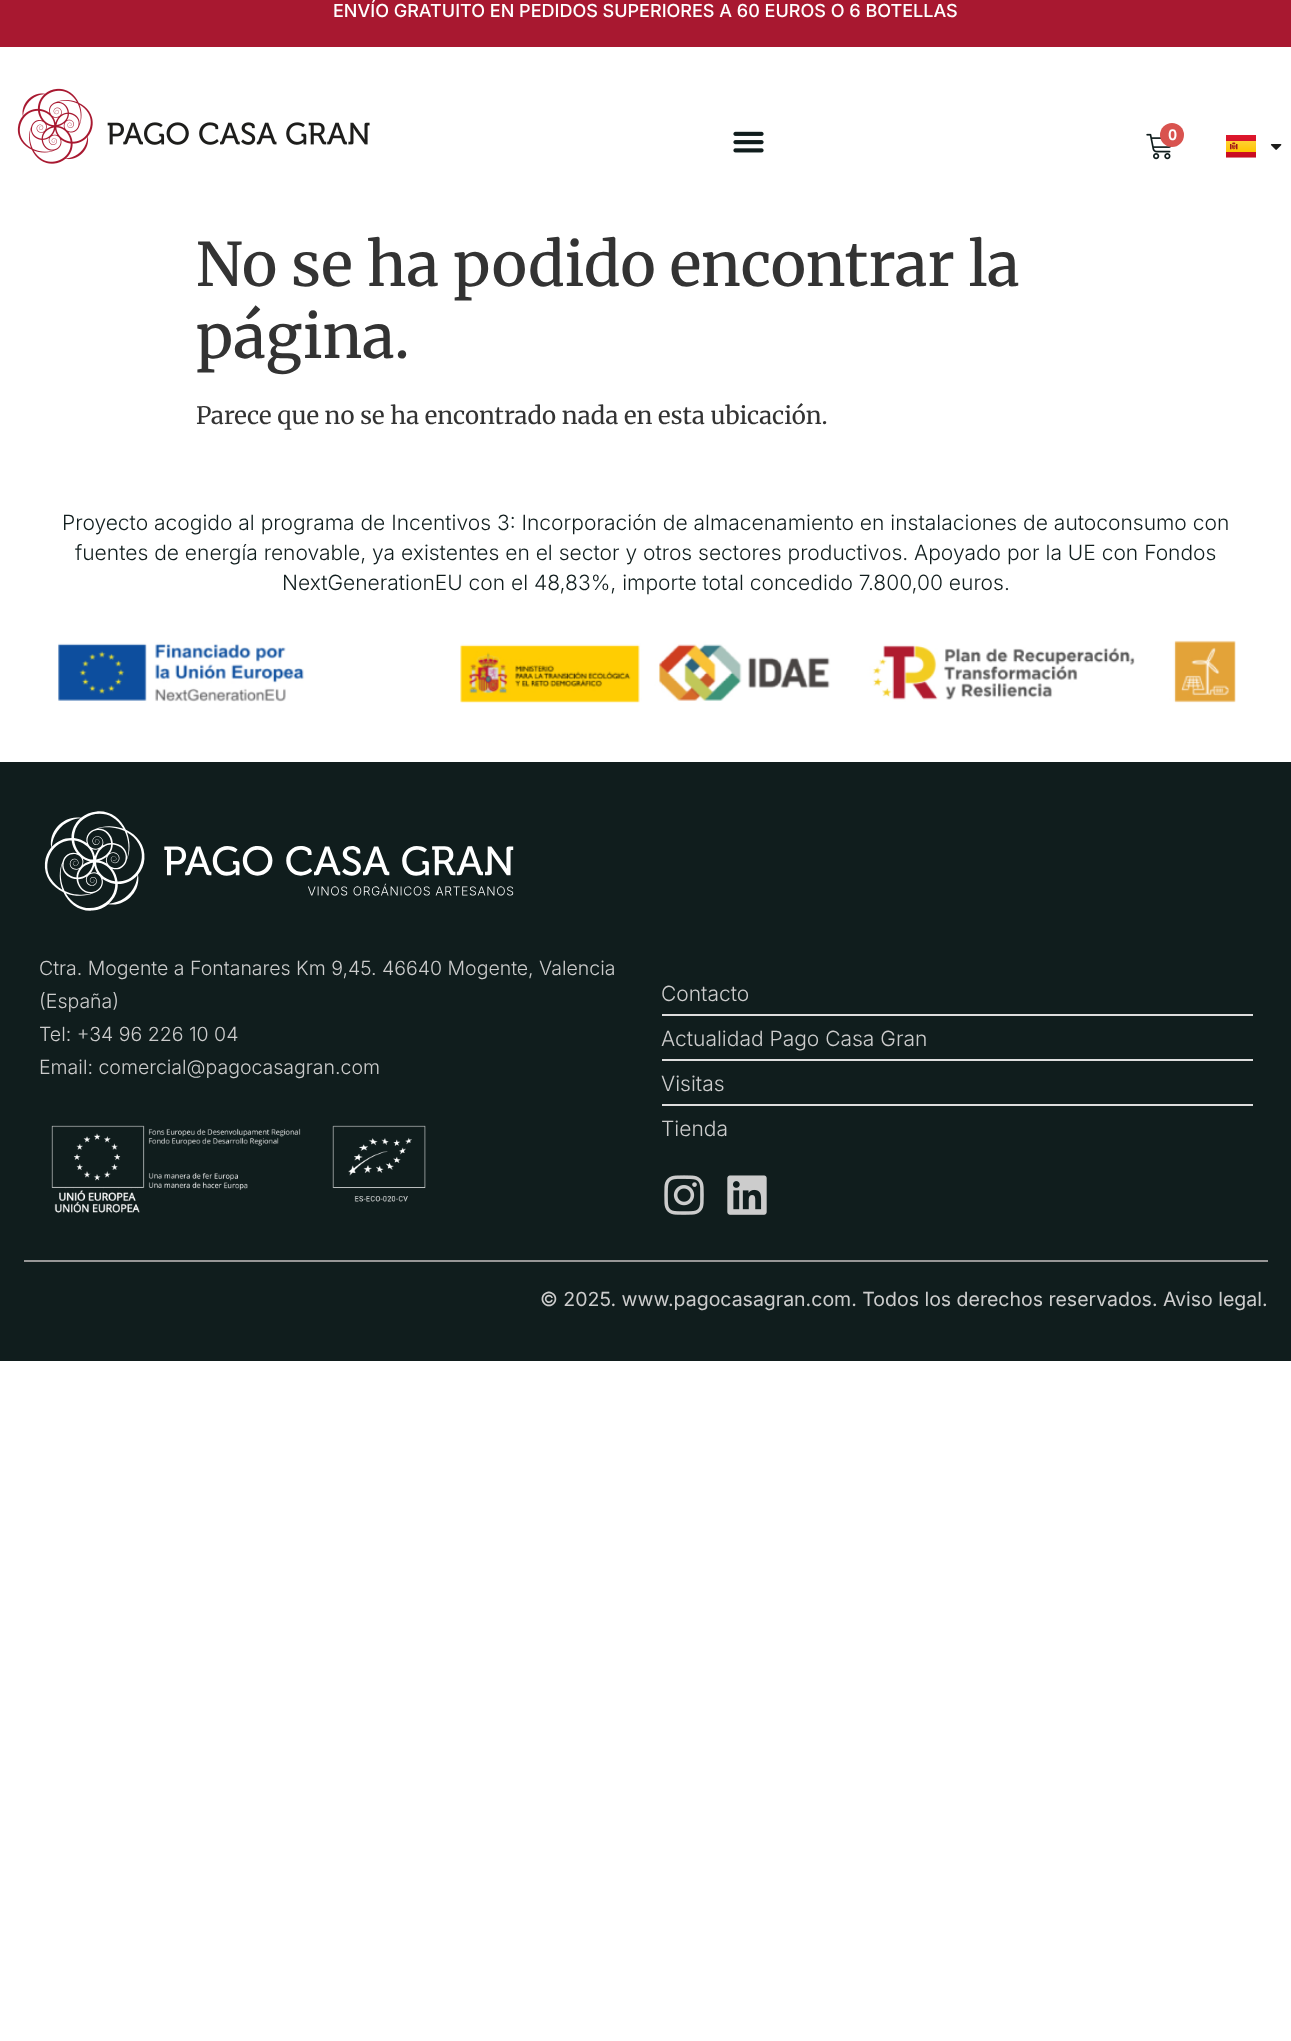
<svg xmlns="http://www.w3.org/2000/svg" width="1291" height="2041" viewBox="0 0 1291 2041">
  <rect width="100%" height="100%" fill="#ffffff"/>
  <rect x="0" y="0" width="1291" height="47" fill="#a81830"/>
  <text x="333" y="17" font-family="Inter" font-size="18" font-weight="500" fill="#ffffff">ENVÍO GRATUITO EN PEDIDOS SUPERIORES A 60 EUROS O 6 BOTELLAS</text>
  <image x="17" y="88" width="353" height="76" href="img1.png"/>
  <image x="733" y="131" width="31" height="22" href="img2.png"/>
  <image x="1146" y="133" width="26" height="27" href="img3.png"/>
  <circle cx="1172" cy="135" r="12" fill="#d9534f"/>
  <text x="1168" y="140" font-family="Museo" font-size="15" font-weight="600" fill="#ffffff">0</text>
  <image x="1226" y="135" width="30" height="23" href="img4.png"/>
  <image x="1270" y="144" width="12" height="6" href="img5.png"/>
  <text x="196" y="286" font-family="Merriweather" font-size="60" font-weight="500" fill="#333333">No se ha podido encontrar la</text>
  <text x="196" y="358" font-family="Merriweather" font-size="60" font-weight="500" fill="#333333">página.</text>
  <text x="196" y="424" font-family="Merriweather" font-size="24" fill="#333333">Parece que no se ha encontrado nada en esta ubicación.</text>
  <text x="62" y="530" font-family="Inter" font-size="21" font-weight="300" fill="#101d1d">Proyecto acogido al programa de Incentivos 3: Incorporación de almacenamiento en instalaciones de autoconsumo con</text>
  <text x="75" y="560" font-family="Inter" font-size="21" font-weight="300" fill="#101d1d">fuentes de energía renovable, ya existentes en el sector y otros sectores productivos. Apoyado por la UE con Fondos</text>
  <text x="282" y="590" font-family="Inter" font-size="21" font-weight="300" fill="#101d1d">NextGenerationEU con el 48,83%, importe total concedido 7.800,00 euros.</text>
  <image x="58" y="640" width="1178" height="63" href="img6.png"/>
  <rect x="0" y="762" width="1291" height="599" fill="#101d1d"/>
  <image x="44" y="811" width="470" height="100" href="img7.png"/>
  <text x="39" y="975" font-family="Inter" font-size="19.5" font-weight="300" fill="#cccccc">Ctra. Mogente a Fontanares Km 9,45. 46640 Mogente, Valencia</text>
  <text x="39" y="1008" font-family="Inter" font-size="19.5" font-weight="300" fill="#cccccc">(España)</text>
  <text x="39" y="1041" font-family="Inter" font-size="19.5" font-weight="300" fill="#cccccc">Tel: +34 96 226 10 04</text>
  <text x="39" y="1074" font-family="Inter" font-size="19.5" font-weight="300" fill="#cccccc">Email: comercial@pagocasagran.com</text>
  <image x="51" y="1125" width="375" height="88" href="img8.png"/>
  <text x="661" y="1001" font-family="Inter" font-size="21" font-weight="300" fill="#cccccc">Contacto</text>
  <rect x="662" y="1014" width="591" height="2" fill="#dddddd"/>
  <text x="661" y="1046" font-family="Inter" font-size="21" font-weight="300" fill="#cccccc">Actualidad Pago Casa Gran</text>
  <rect x="662" y="1059" width="591" height="2" fill="#dddddd"/>
  <text x="661" y="1091" font-family="Inter" font-size="21" font-weight="300" fill="#cccccc">Visitas</text>
  <rect x="662" y="1104" width="591" height="2" fill="#dddddd"/>
  <text x="661" y="1136" font-family="Inter" font-size="21" font-weight="300" fill="#cccccc">Tienda</text>
  <image x="664" y="1175" width="40" height="40" href="img9.png"/>
  <image x="727" y="1175" width="40" height="40" href="img10.png"/>
  <rect x="24" y="1260" width="1244" height="2" fill="#979797"/>
  <text x="540" y="1306" font-family="Inter" font-size="19.5" fill="#cccccc">© 2025. www.pagocasagran.com. Todos los derechos reservados. Aviso legal.</text>
</svg>
